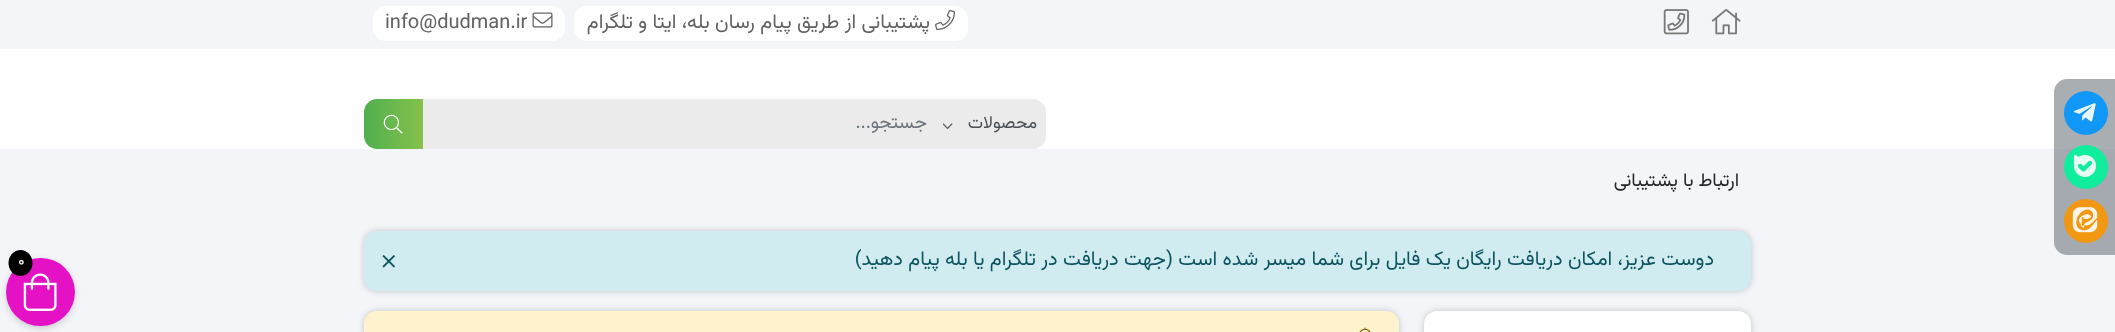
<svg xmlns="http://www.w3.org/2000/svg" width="2115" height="332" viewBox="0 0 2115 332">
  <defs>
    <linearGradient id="g1" gradientUnits="userSpaceOnUse" x1="364" y1="124" x2="481" y2="124"><stop offset="0" stop-color="#50b04f"/><stop offset="0.51" stop-color="#86c14b"/><stop offset="1" stop-color="#86c14b"/></linearGradient>
    <filter id="blur1" x="-50%" y="-200%" width="200%" height="500%"><feGaussianBlur stdDeviation="3"/></filter>
  </defs>
  <rect width="100%" height="100%" fill="#f4f5f9"/>
  <rect x="0" y="49" width="2115" height="100" fill="#ffffff"/>
  <path d="M2067 79H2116V255H2067C2060 255 2054 249 2054 242V92C2054 85 2060 79 2067 79Z" fill="#6c757d" fill-opacity="0.59"/>
  <circle cx="2086" cy="113" r="22" fill="#1197f7"/>
  <image x="2073" y="103" width="23" height="19" href="img1.png"/>
  <circle cx="2086" cy="167" r="22" fill="#00f49b" fill-opacity="0.9"/>
  <image x="2073" y="154" width="23" height="23" href="img2.png"/>
  <circle cx="2086" cy="221" r="22" fill="#f99500" fill-opacity="0.9"/>
  <image x="2072" y="207" width="26" height="26" href="img3.png"/>
  <image x="1711" y="9" width="30" height="26" href="img4.png"/>
  <image x="1663" y="9" width="26" height="26" href="img5.png"/>
  <rect x="574" y="6" width="394" height="35" rx="13" fill="#ffffff"/>
  <image x="935" y="10" width="20" height="20" href="img6.png"/>
  <text x="930" y="28" font-family="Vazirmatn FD" font-size="20" direction="rtl" fill="#616161">پشتیبانی از طریق پیام رسان بله، ایتا و تلگرام</text>
  <rect x="373" y="6" width="192" height="35" rx="13" fill="#ffffff"/>
  <image x="532" y="12" width="21" height="16" href="img7.png"/>
  <text x="385" y="28" font-family="Vazirmatn" font-size="20" fill="#616161">info@dudman.ir</text>
  <path d="M943 99H1033C1040 99 1046 105 1046 112V136C1046 143 1040 149 1033 149H943Z" fill="#ebebeb"/>
  <text x="1037" y="128" font-family="Vazirmatn" font-size="17.5" direction="rtl" fill="#495057">محصولات</text>
  <image x="943" y="123" width="10" height="7" href="img8.png"/>
  <rect x="423" y="99" width="520" height="50" fill="#ebebeb"/>
  <text x="927" y="128" font-family="Vazirmatn" font-size="18.75" direction="rtl" fill="#6c757d">جستجو...</text>
  <path d="M377 99H423V149H377C370 149 364 143 364 136V112C364 105 370 99 377 99Z" fill="url(#g1)"/>
  <image x="383" y="114" width="20" height="20" href="img9.png"/>
  <text x="1739" y="186" font-family="Vazirmatn" font-size="18.75" direction="rtl" fill="#212529">ارتباط با پشتیبانی</text>
  <rect x="364" y="231" width="1387" height="60" rx="13" fill="#000000" fill-opacity="0.2" filter="url(#blur1)"/>
  <rect x="364" y="231" width="1387" height="60" rx="13" fill="#d1ecf1"/>
  <text x="1714" y="265" font-family="Vazirmatn" font-size="20" direction="rtl" fill="#0c5460">دوست عزیز، امکان دریافت رایگان یک فایل برای شما میسر شده است (جهت دریافت در تلگرام یا بله پیام دهید)</text>
  <image x="382" y="255" width="13" height="13" href="img10.png"/>
  <rect x="6" y="260" width="69" height="69" rx="34.5" fill="#000000" fill-opacity="0.16" filter="url(#blur1)"/>
  <rect x="6" y="258" width="69" height="68" rx="34" fill="#e512c5"/>
  <image x="23" y="273" width="34" height="38" href="img11.png"/>
  <ellipse cx="20.5" cy="263" rx="12" ry="13" fill="#000000"/>
  <text x="18" y="266" font-family="Vazirmatn FD" font-size="16" fill="#ffffff">0</text>
  <rect x="1424" y="311" width="327" height="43" rx="13" fill="#000000" fill-opacity="0.2" filter="url(#blur1)"/>
  <rect x="1424" y="311" width="327" height="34" rx="13" fill="#ffffff"/>
  <rect x="364" y="311" width="1035" height="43" rx="13" fill="#000000" fill-opacity="0.2" filter="url(#blur1)"/>
  <rect x="364" y="311" width="1035" height="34" rx="13" fill="#fff3cd"/>
  <image x="1359" y="327" width="12" height="5" href="img12.png"/>
</svg>
